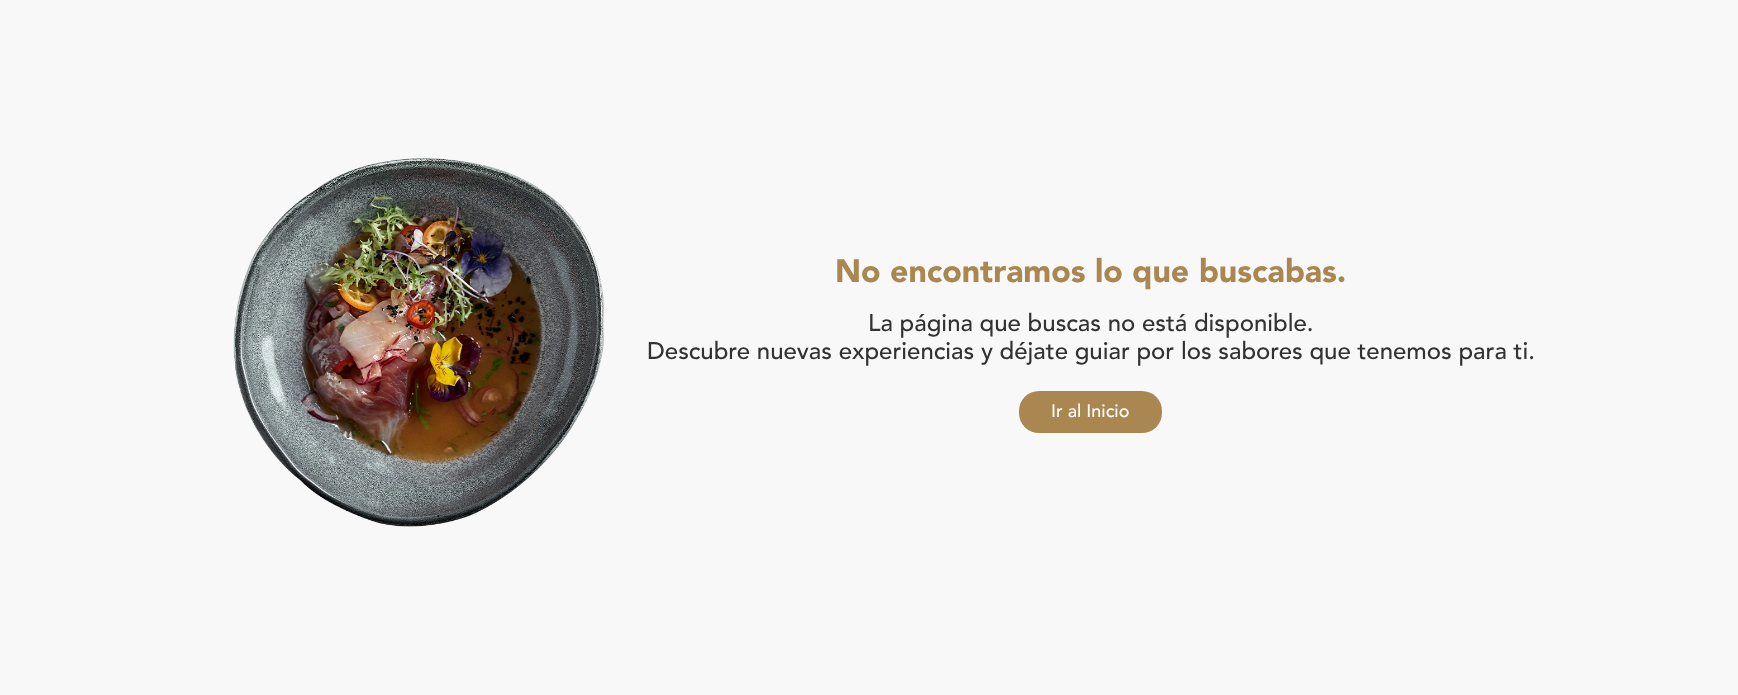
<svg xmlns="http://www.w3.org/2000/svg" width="1738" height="695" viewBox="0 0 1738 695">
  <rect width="100%" height="100%" fill="#f8f8f8"/>
  <image x="233" y="158" width="371" height="369" href="img1.png"/>
  <text x="835" y="282" font-family="Avenir" font-size="32" font-weight="900" fill="#aa8750">No encontramos lo que buscabas.</text>
  <text x="868" y="331" font-family="Avenir" font-size="24" font-weight="500" fill="#323232">La página que buscas no está disponible.</text>
  <text x="647" y="359" font-family="Avenir" font-size="24" font-weight="500" fill="#323232">Descubre nuevas experiencias y déjate guiar por los sabores que tenemos para ti.</text>
  <rect x="1019" y="391" width="143" height="42" rx="20" fill="#aa8750"/>
  <text x="1051" y="417" font-family="Avenir" font-size="18" font-weight="500" fill="#ffffff">Ir al Inicio</text>
</svg>
